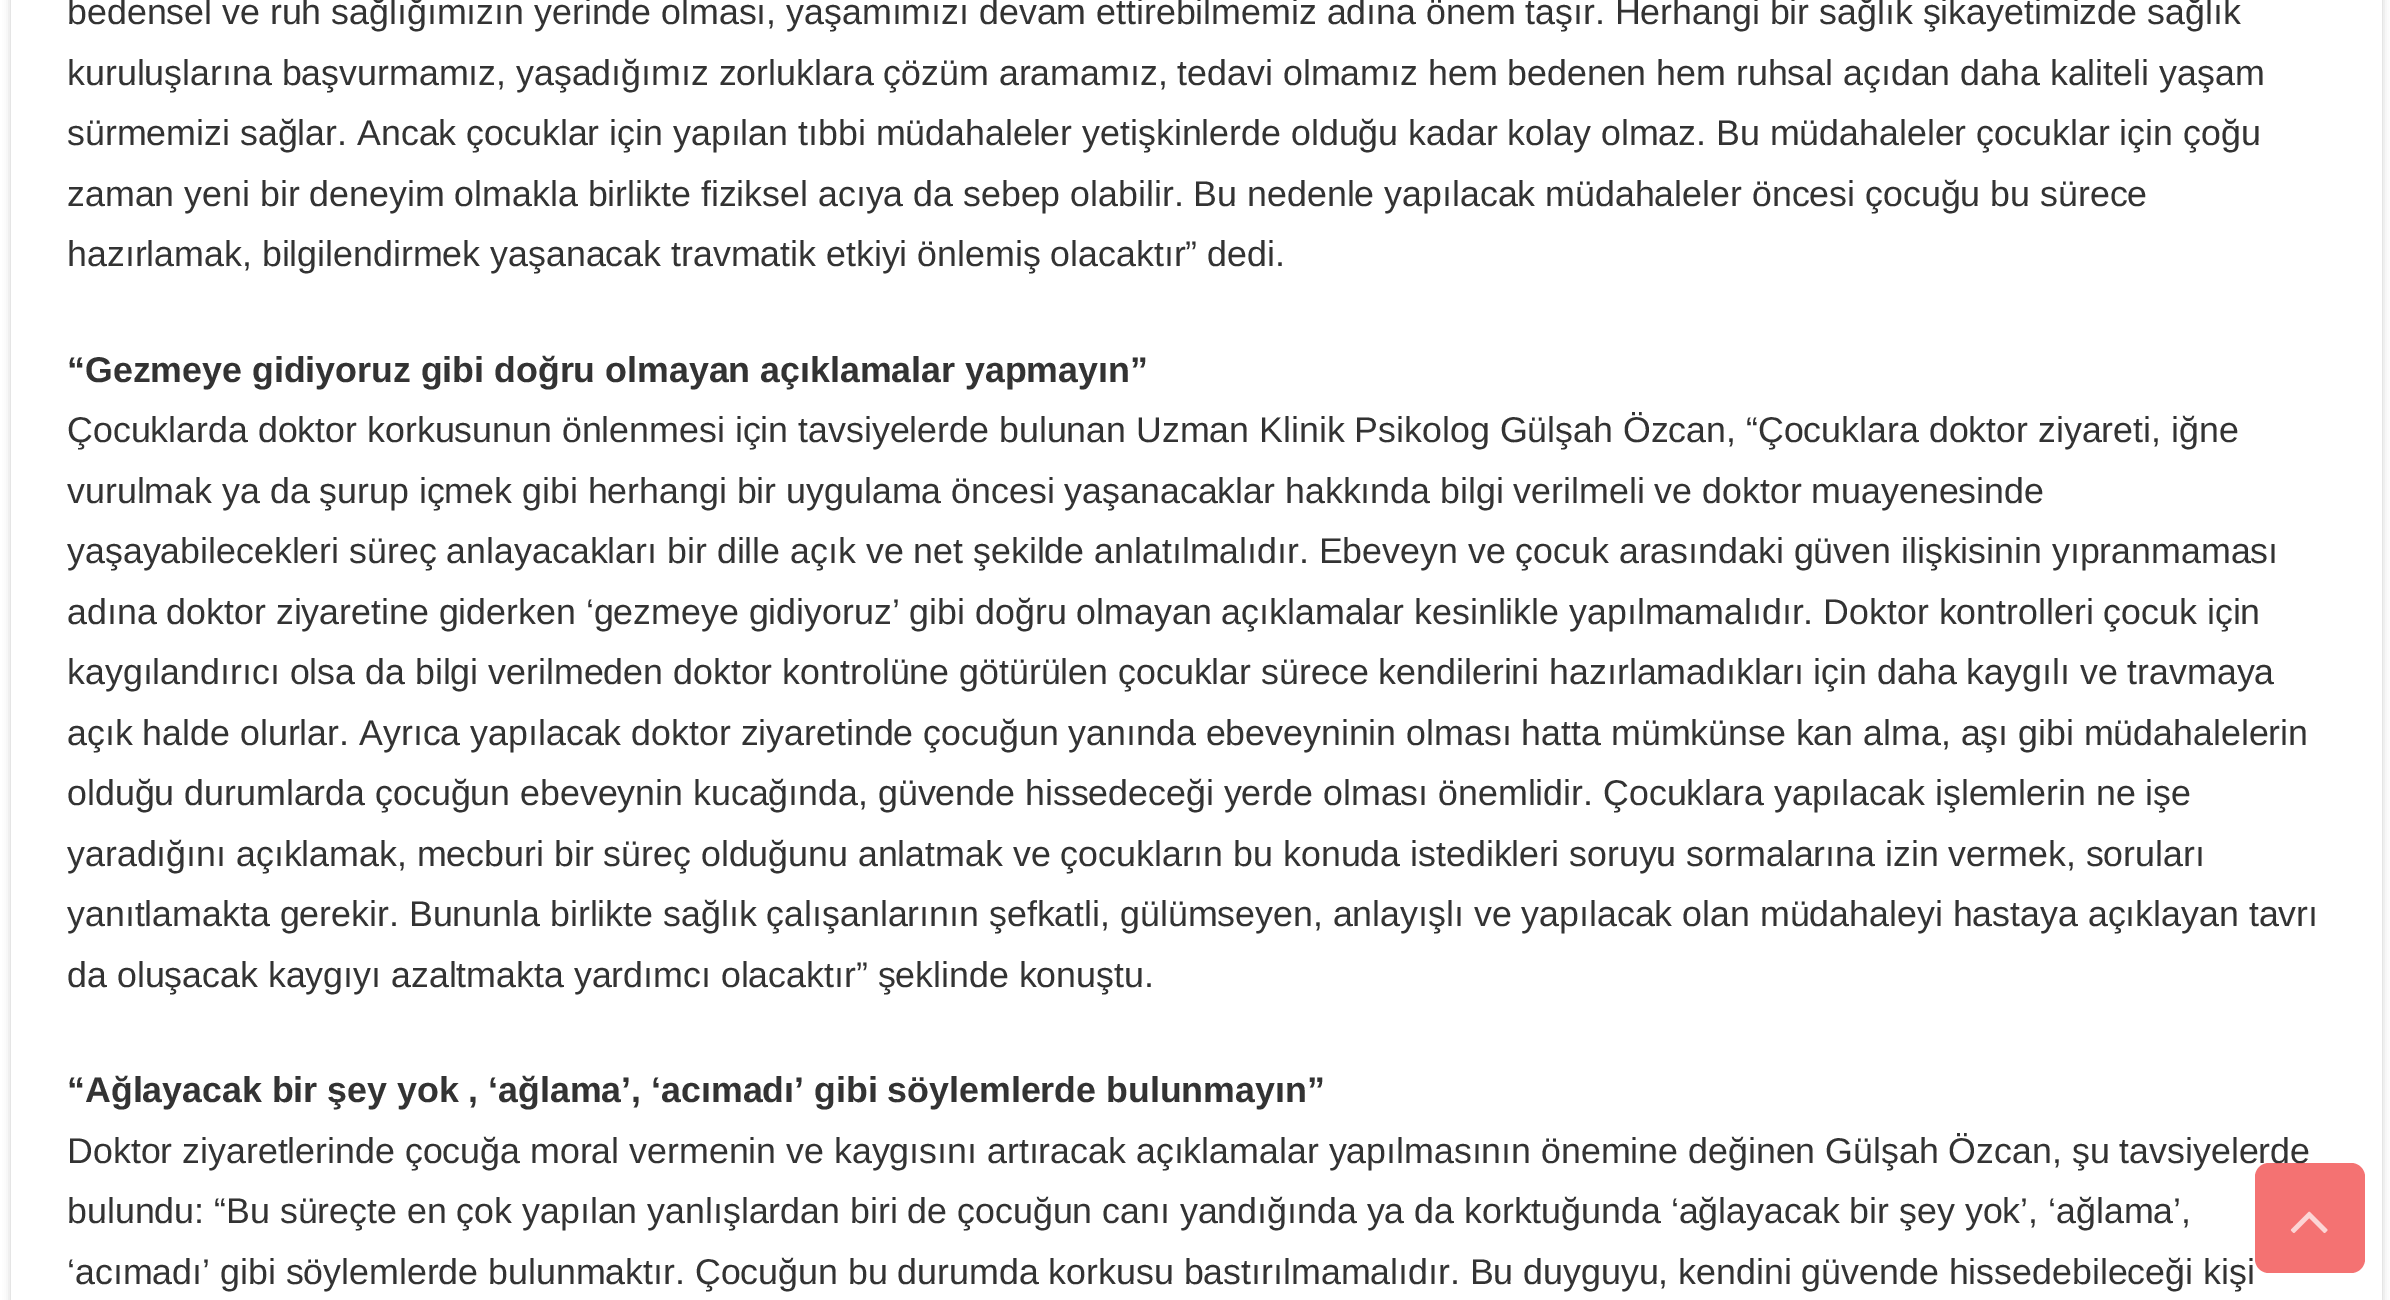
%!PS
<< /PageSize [2390 1300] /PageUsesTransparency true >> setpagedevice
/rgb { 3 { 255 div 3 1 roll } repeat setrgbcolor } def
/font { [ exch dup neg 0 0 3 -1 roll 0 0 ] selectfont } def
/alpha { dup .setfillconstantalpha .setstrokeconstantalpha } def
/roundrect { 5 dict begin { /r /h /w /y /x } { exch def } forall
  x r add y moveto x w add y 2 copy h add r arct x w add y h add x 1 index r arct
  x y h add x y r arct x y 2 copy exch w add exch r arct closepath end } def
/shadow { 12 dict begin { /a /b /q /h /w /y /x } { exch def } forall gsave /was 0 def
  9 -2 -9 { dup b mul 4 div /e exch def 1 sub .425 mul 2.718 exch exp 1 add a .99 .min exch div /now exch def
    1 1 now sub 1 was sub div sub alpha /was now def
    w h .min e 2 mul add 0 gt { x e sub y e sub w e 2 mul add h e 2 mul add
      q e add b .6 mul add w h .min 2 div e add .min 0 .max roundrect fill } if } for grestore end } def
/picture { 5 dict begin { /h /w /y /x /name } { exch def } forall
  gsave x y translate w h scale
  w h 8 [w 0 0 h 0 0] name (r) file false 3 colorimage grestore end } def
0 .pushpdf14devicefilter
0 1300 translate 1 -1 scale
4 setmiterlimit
255 255 255 rgb
0 0 2390 1300 rectfill
202 202 202 rgb
11 -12 2371 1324 0 4 1 shadow
255 255 255 rgb
11 0 2371 1300 rectfill
/LiberationSans-Regular 35.75 font
51 51 51 rgb
[
  [(bedensel ve ruh sağlığımızın yerinde olması, yaşamımızı devam ettirebilmemiz adına önem taşır. Herhangi bir sağlık şikayetimizde sağlık) 67 24]
  [(kuruluşlarına başvurmamız, yaşadığımız zorluklara çözüm aramamız, tedavi olmamız hem bedenen hem ruhsal açıdan daha kaliteli yaşam) 67 85]
  [(sürmemizi sağlar. Ancak çocuklar için yapılan tıbbi müdahaleler yetişkinlerde olduğu kadar kolay olmaz. Bu müdahaleler çocuklar için çoğu) 67 145]
  [(zaman yeni bir deneyim olmakla birlikte fiziksel acıya da sebep olabilir. Bu nedenle yapılacak müdahaleler öncesi çocuğu bu sürece) 67 206]
  [(hazırlamak, bilgilendirmek yaşanacak travmatik etkiyi önlemiş olacaktır” dedi.) 67 266]
] { aload pop moveto show } forall
/LiberationSans-Bold 35.75 font
67 382 moveto (“Gezmeye gidiyoruz gibi doğru olmayan açıklamalar yapmayın”) show
/LiberationSans-Regular 35.75 font
[
  [(Çocuklarda doktor korkusunun önlenmesi için tavsiyelerde bulunan Uzman Klinik Psikolog Gülşah Özcan, “Çocuklara doktor ziyareti, iğne) 67 442]
  [(vurulmak ya da şurup içmek gibi herhangi bir uygulama öncesi yaşanacaklar hakkında bilgi verilmeli ve doktor muayenesinde) 67 503]
  [(yaşayabilecekleri süreç anlayacakları bir dille açık ve net şekilde anlatılmalıdır. Ebeveyn ve çocuk arasındaki güven ilişkisinin yıpranmaması) 67 563]
  [(adına doktor ziyaretine giderken ‘gezmeye gidiyoruz’ gibi doğru olmayan açıklamalar kesinlikle yapılmamalıdır. Doktor kontrolleri çocuk için) 67 624]
  [(kaygılandırıcı olsa da bilgi verilmeden doktor kontrolüne götürülen çocuklar sürece kendilerini hazırlamadıkları için daha kaygılı ve travmaya) 67 684]
  [(açık halde olurlar. Ayrıca yapılacak doktor ziyaretinde çocuğun yanında ebeveyninin olması hatta mümkünse kan alma, aşı gibi müdahalelerin) 67 745]
  [(olduğu durumlarda çocuğun ebeveynin kucağında, güvende hissedeceği yerde olması önemlidir. Çocuklara yapılacak işlemlerin ne işe) 67 805]
  [(yaradığını açıklamak, mecburi bir süreç olduğunu anlatmak ve çocukların bu konuda istedikleri soruyu sormalarına izin vermek, soruları) 67 866]
  [(yanıtlamakta gerekir. Bununla birlikte sağlık çalışanlarının şefkatli, gülümseyen, anlayışlı ve yapılacak olan müdahaleyi hastaya açıklayan tavrı) 67 926]
  [(da oluşacak kaygıyı azaltmakta yardımcı olacaktır” şeklinde konuştu.) 67 987]
] { aload pop moveto show } forall
/LiberationSans-Bold 35.75 font
67 1102 moveto (“Ağlayacak bir şey yok , ‘ağlama’, ‘acımadı’ gibi söylemlerde bulunmayın”) show
/LiberationSans-Regular 35.75 font
[
  [(Doktor ziyaretlerinde çocuğa moral vermenin ve kaygısını artıracak açıklamalar yapılmasının önemine değinen Gülşah Özcan, şu tavsiyelerde) 67 1163]
  [(bulundu: “Bu süreçte en çok yapılan yanlışlardan biri de çocuğun canı yandığında ya da korktuğunda ‘ağlayacak bir şey yok’, ‘ağlama’,) 67 1223]
  [(‘acımadı’ gibi söylemlerde bulunmaktır. Çocuğun bu durumda korkusu bastırılmamalıdır. Bu duyguyu, kendini güvende hissedebileceği kişi) 67 1284]
] { aload pop moveto show } forall
0.7 alpha
239 54 54 rgb
2255 1163 110 110 14 roundrect fill
1 alpha
(img/1.rgb) 2290 1211 38 22 picture
.poppdf14devicefilter showpage
